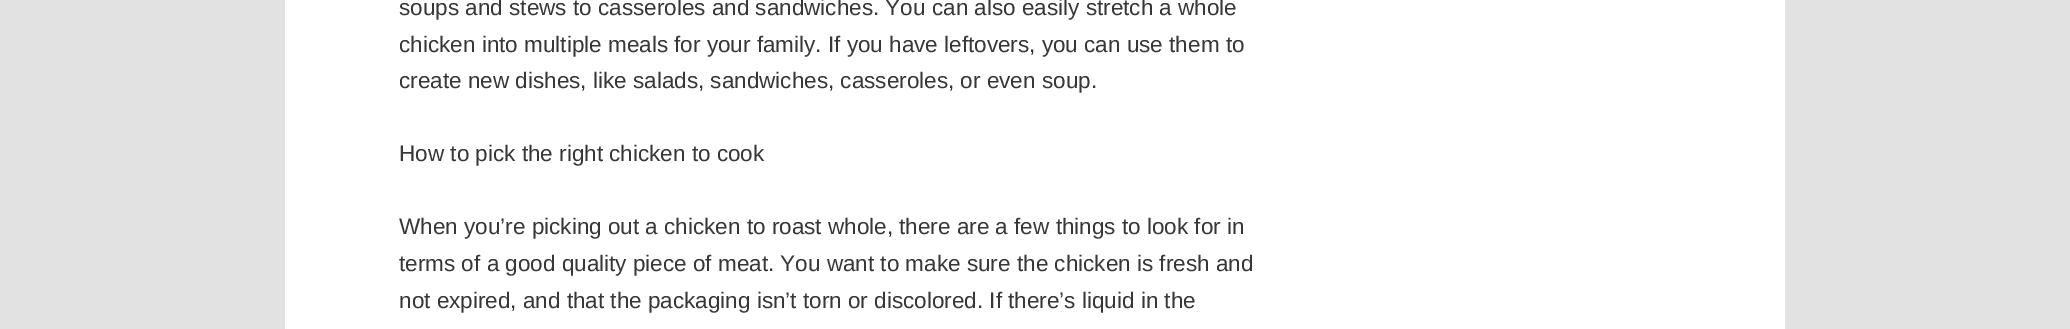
%!PS
<< /PageSize [2070 329] >> setpagedevice
/rgb { 3 { 255 div 3 1 roll } repeat setrgbcolor } def
/font { [ exch dup neg 0 0 3 -1 roll 0 0 ] selectfont } def
0 329 translate 1 -1 scale
4 setmiterlimit
226 226 226 rgb
0 0 2070 329 rectfill
255 255 255 rgb
285 0 1500 329 rectfill
/LiberationSans-Regular 22.5 font
55 55 55 rgb
[
  [(soups and stews to casseroles and sandwiches. You can also easily stretch a whole) 399 15]
  [(chicken into multiple meals for your family. If you have leftovers, you can use them to) 399 52]
  [(create new dishes, like salads, sandwiches, casseroles, or even soup.) 399 88]
  [(How to pick the right chicken to cook) 399 161]
  [(When you’re picking out a chicken to roast whole, there are a few things to look for in) 399 234]
  [(terms of a good quality piece of meat. You want to make sure the chicken is fresh and) 399 271]
  [(not expired, and that the packaging isn’t torn or discolored. If there’s liquid in the) 399 308]
] { aload pop moveto show } forall
showpage
